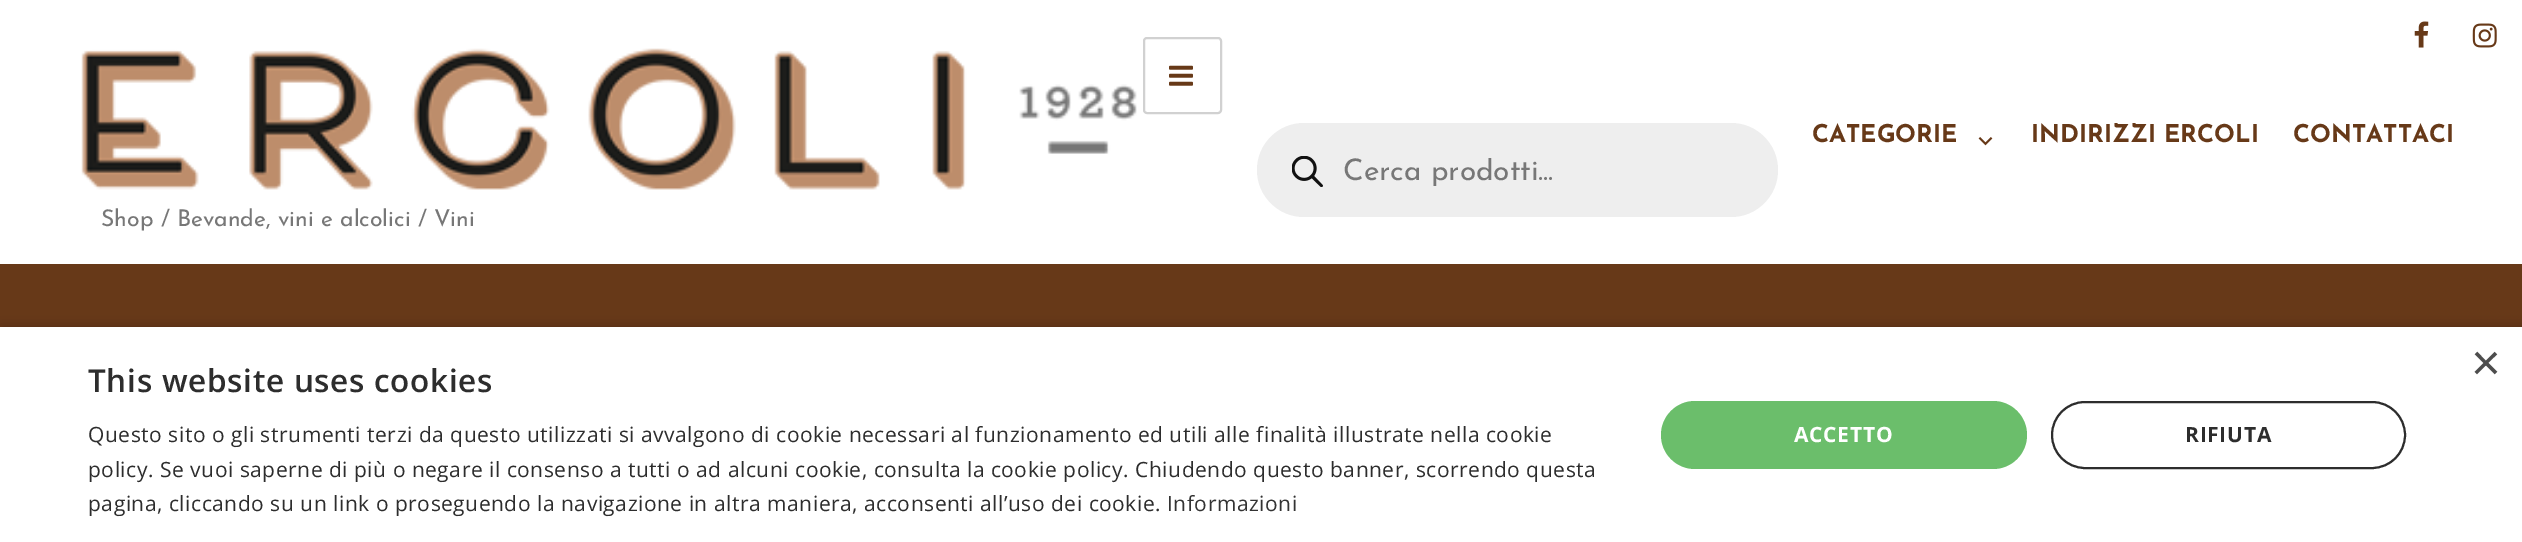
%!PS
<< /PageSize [2522 542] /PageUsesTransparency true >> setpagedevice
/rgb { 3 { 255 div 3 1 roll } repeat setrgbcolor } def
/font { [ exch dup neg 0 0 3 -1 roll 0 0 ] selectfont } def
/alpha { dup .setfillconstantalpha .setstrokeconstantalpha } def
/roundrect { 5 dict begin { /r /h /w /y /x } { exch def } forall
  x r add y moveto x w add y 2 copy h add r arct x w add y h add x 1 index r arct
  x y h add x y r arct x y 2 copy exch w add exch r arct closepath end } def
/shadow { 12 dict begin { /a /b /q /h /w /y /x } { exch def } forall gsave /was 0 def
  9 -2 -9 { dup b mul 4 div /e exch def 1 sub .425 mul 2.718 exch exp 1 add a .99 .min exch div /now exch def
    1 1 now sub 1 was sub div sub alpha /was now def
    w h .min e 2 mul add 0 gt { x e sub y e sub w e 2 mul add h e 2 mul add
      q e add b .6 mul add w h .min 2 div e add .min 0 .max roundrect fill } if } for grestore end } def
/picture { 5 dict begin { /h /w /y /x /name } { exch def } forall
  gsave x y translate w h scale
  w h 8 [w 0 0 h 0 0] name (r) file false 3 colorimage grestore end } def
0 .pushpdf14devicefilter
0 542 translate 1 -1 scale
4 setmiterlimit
255 255 255 rgb
0 0 2522 542 rectfill
(img/1.rgb) 81 48 1056 142 picture
209 209 209 rgb
2 setlinewidth
1144 38 77 75 3 roundrect stroke
(img/2.rgb) 1169 65 24 21 picture
(img/3.rgb) 1978 137 15 9 picture
238 238 238 rgb
1257 123 521 94 47 roundrect fill
(img/4.rgb) 1292 156 31 31 picture
(img/5.rgb) 2414 21 15 27 picture
(img/6.rgb) 2472 23 25 25 picture
103 57 24 rgb
0 264 2522 63 rectfill
0 0 0 rgb
2 331 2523 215 0 7 0.35 shadow
255 255 255 rgb
0 327 2522 215 rectfill
107 190 107 rgb
1661 401 366 68 34 roundrect fill
45 45 45 rgb
2052 402 353 66 33 roundrect stroke
/JosefinSans-Bold 24.5 font
103 57 24 rgb
[
  [(CATEGORIE) 1812 142]
  [(INDIRIZZI ERCOLI) 2031 142]
  [(CONTATTACI) 2293 142]
] { aload pop moveto show } forall
gsave
1344 158 389 29 rectclip
/JosefinSans-Regular 29.75 font
119 119 119 rgb
1343 180 moveto (Cerca prodotti...) show
grestore
/JosefinSans-Regular 23 font
119 119 119 rgb
101 226 moveto (Shop / Bevande, vini e alcolici / Vini) show
/LiberationSans-Regular 51 font
77 77 77 rgb
2471 380 moveto (×) show
/OpenSans-SemiBold 31.5 font
45 45 45 rgb
88 392 moveto 0.7 0 (This website uses cookies) ashow
/OpenSans-Regular 21 font
88 442 moveto 0.53 0 (Questo sito o gli strumenti terzi da questo utilizzati si avvalgono di cookie necessari al funzionamento ed utili alle finalità illustrate nella cookie) ashow
88 477 moveto 0.53 0 (policy. Se vuoi saperne di più o negare il consenso a tutti o ad alcuni cookie, consulta la cookie policy. Chiudendo questo banner, scorrendo questa) ashow
88 511 moveto 0.53 0 (pagina, cliccando su un link o proseguendo la navigazione in altra maniera, acconsenti all’uso dei cookie.) ashow
51 51 51 rgb
1167 511 moveto 0.53 0 (Informazioni) ashow
/OpenSans-Bold 21 font
255 255 255 rgb
1794 442 moveto 0.7 0 (ACCETTO) ashow
45 45 45 rgb
2185 442 moveto 0.7 0 (RIFIUTA) ashow
.poppdf14devicefilter showpage
